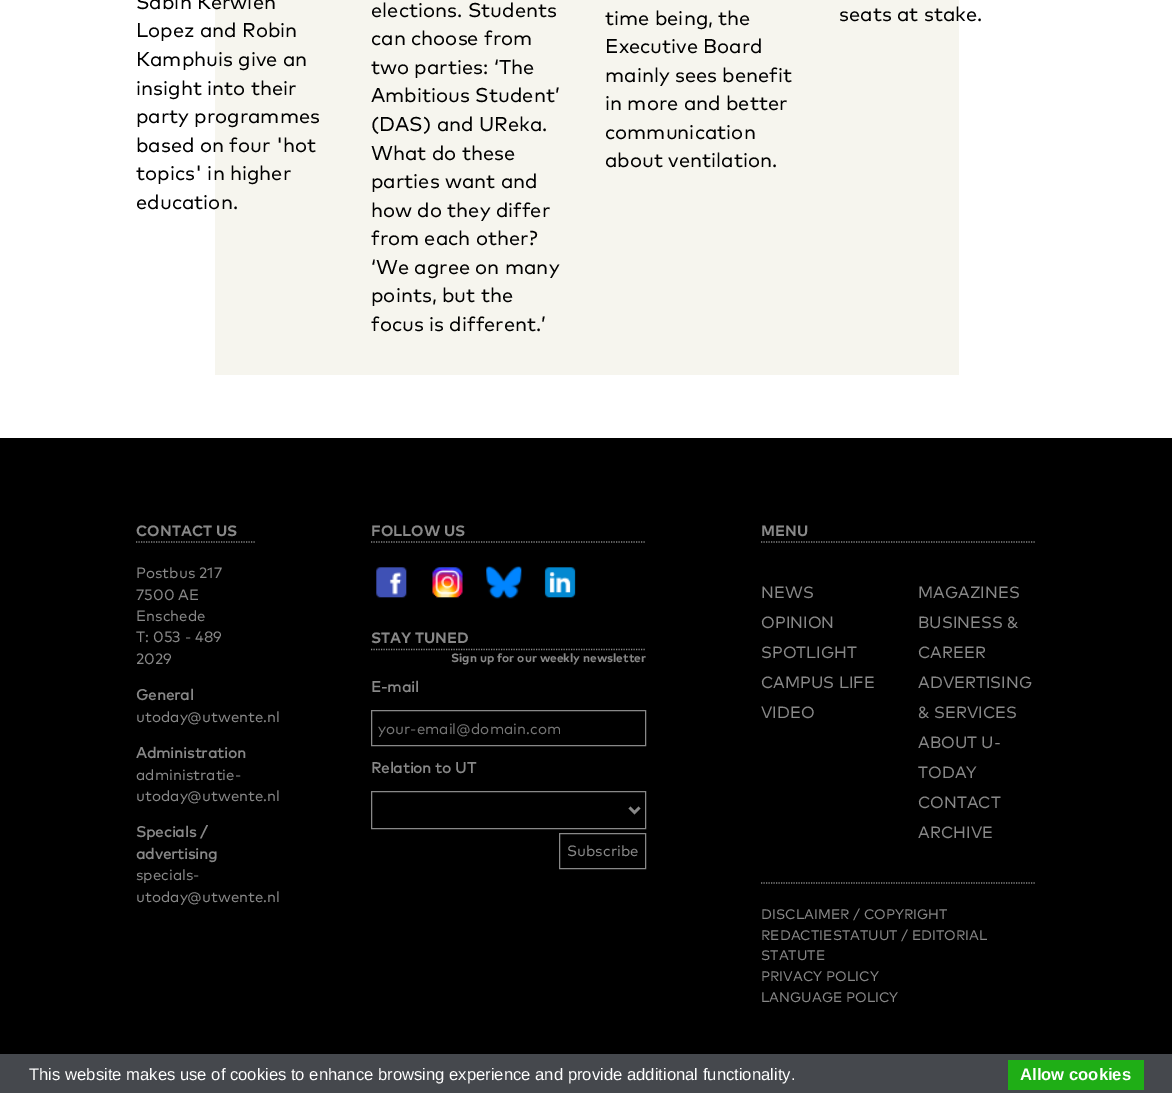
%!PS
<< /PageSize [1172 1093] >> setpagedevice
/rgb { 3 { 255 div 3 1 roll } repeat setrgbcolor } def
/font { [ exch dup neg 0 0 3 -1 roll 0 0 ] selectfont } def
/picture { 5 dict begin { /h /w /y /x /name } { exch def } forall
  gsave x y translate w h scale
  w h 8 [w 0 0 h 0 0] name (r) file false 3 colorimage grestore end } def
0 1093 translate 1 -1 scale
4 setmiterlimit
255 255 255 rgb
0 0 1172 1093 rectfill
246 245 238 rgb
215 0 744 375 rectfill
0 0 0 rgb
0 438 1172 616 rectfill
136 136 136 rgb
1.2 setlinewidth
[1.25 1.25] 0 setdash
136 542 moveto 255 542 lineto stroke
371 542 moveto 646 542 lineto stroke
(img/1.rgb) 376 567 31 31 picture
(img/2.rgb) 432 567 31 31 picture
(img/3.rgb) 486 566 36 33 picture
(img/4.rgb) 544 567 32 31 picture
371 649.5 moveto 646 649.5 lineto stroke
1 setlinewidth
[] 0 setdash
371.5 710.5 274 35 rectstroke
371.5 791.5 274 37 rectstroke
2.5 setlinewidth
629.5 807.5 moveto 634.5 812.5 lineto 639.5 807.5 lineto stroke
1 setlinewidth
559.5 833.5 86 35 rectstroke
1.2 setlinewidth
[1.25 1.25] 0 setdash
761 542 moveto 1036 542 lineto stroke
761 883 moveto 1036 883 lineto stroke
69 72 77 rgb
0 1054 1172 39 rectfill
31 174 22 rgb
1008 1060 136 30 rectfill
/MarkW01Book-Regular 20 font
0 0 0 rgb
[
  [(Sabin Kerwien) 136 9]
  [(Lopez and Robin) 136 37]
  [(Kamphuis give an) 136 66]
  [(insight into their) 136 95]
  [(party programmes) 136 123]
  [(based on four 'hot) 136 152]
  [(topics' in higher) 136 180]
  [(education.) 136 209]
  [(elections. Students) 371 17]
  [(can choose from) 371 45]
  [(two parties: ‘The) 371 74]
  [(Ambitious Student’) 371 102]
  [(\(DAS\) and UReka.) 371 131]
  [(What do these) 371 160]
  [(parties want and) 371 188]
  [(how do they differ) 371 217]
  [(from each other?) 371 245]
  [(‘We agree on many) 371 274]
  [(points, but the) 371 302]
  [(focus is different.’) 371 331]
  [(time being, the) 605 25]
  [(Executive Board) 605 53]
  [(mainly sees benefit) 605 82]
  [(in more and better) 605 110]
  [(communication) 605 139]
  [(about ventilation.) 605 167]
  [(seats at stake.) 839 21]
] { aload pop moveto show } forall
/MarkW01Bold-Bold 15 font
136 136 136 rgb
136 536 moveto (CONTACT US) show
/MarkW01Book-Regular 15 font
[
  [(Postbus 217) 136 578]
  [(7500 AE) 136 600]
  [(Enschede) 136 621]
  [(T: 053 - 489) 136 642]
  [(2029) 136 664]
] { aload pop moveto show } forall
/MarkW01Book-Bold 15 font
136 700 moveto (General) show
/MarkW01Book-Regular 15 font
136 722 moveto (utoday@utwente.nl) show
/MarkW01Book-Bold 15 font
136 758 moveto (Administration) show
/MarkW01Book-Regular 15 font
136 780 moveto (administratie-) show
136 801 moveto (utoday@utwente.nl) show
/MarkW01Book-Bold 15 font
136 837 moveto (Specials /) show
136 859 moveto (advertising) show
/MarkW01Book-Regular 15 font
136 880 moveto (specials-) show
136 902 moveto (utoday@utwente.nl) show
/MarkW01Bold-Bold 15 font
371 536 moveto (FOLLOW US) show
371 643 moveto (STAY TUNED) show
/MarkW01Bold-Bold 12 font
451 662 moveto (Sign up for our weekly newsletter) show
/MarkW01Book-Bold 15 font
371 692 moveto (E-mail) show
/MarkW01Book-Regular 15 font
117 117 117 rgb
378 734 moveto (your-email@domain.com) show
/MarkW01Book-Bold 15 font
136 136 136 rgb
371 773 moveto (Relation to UT) show
/MarkW01Book-Regular 15 font
567 856 moveto (Subscribe) show
/MarkW01Bold-Bold 15 font
761 536 moveto (MENU) show
/MarkW01Book-Regular 16.25 font
[
  [(NEWS) 761 598]
  [(OPINION) 761 628]
  [(SPOTLIGHT) 761 658]
  [(CAMPUS LIFE) 761 688]
  [(VIDEO) 761 718]
  [(MAGAZINES) 918 598]
  [(BUSINESS &) 918 628]
  [(CAREER) 918 658]
  [(ADVERTISING) 918 688]
  [(& SERVICES) 918 718]
  [(ABOUT U-) 918 748]
  [(TODAY) 918 778]
  [(CONTACT) 918 808]
  [(ARCHIVE) 918 838]
] { aload pop moveto show } forall
/MarkW01Book-Regular 13.75 font
[
  [(DISCLAIMER / COPYRIGHT) 761 919]
  [(REDACTIESTATUUT / EDITORIAL) 761 940]
  [(STATUTE) 761 960]
  [(PRIVACY POLICY) 761 981]
  [(LANGUAGE POLICY) 761 1002]
] { aload pop moveto show } forall
/LiberationSans-Regular 16.65 font
255 255 255 rgb
29 1080 moveto (This website makes use of cookies to enhance browsing experience and provide additional functionality.) show
/LiberationSans-Bold 16.65 font
1020 1080 moveto (Allow cookies) show
showpage
